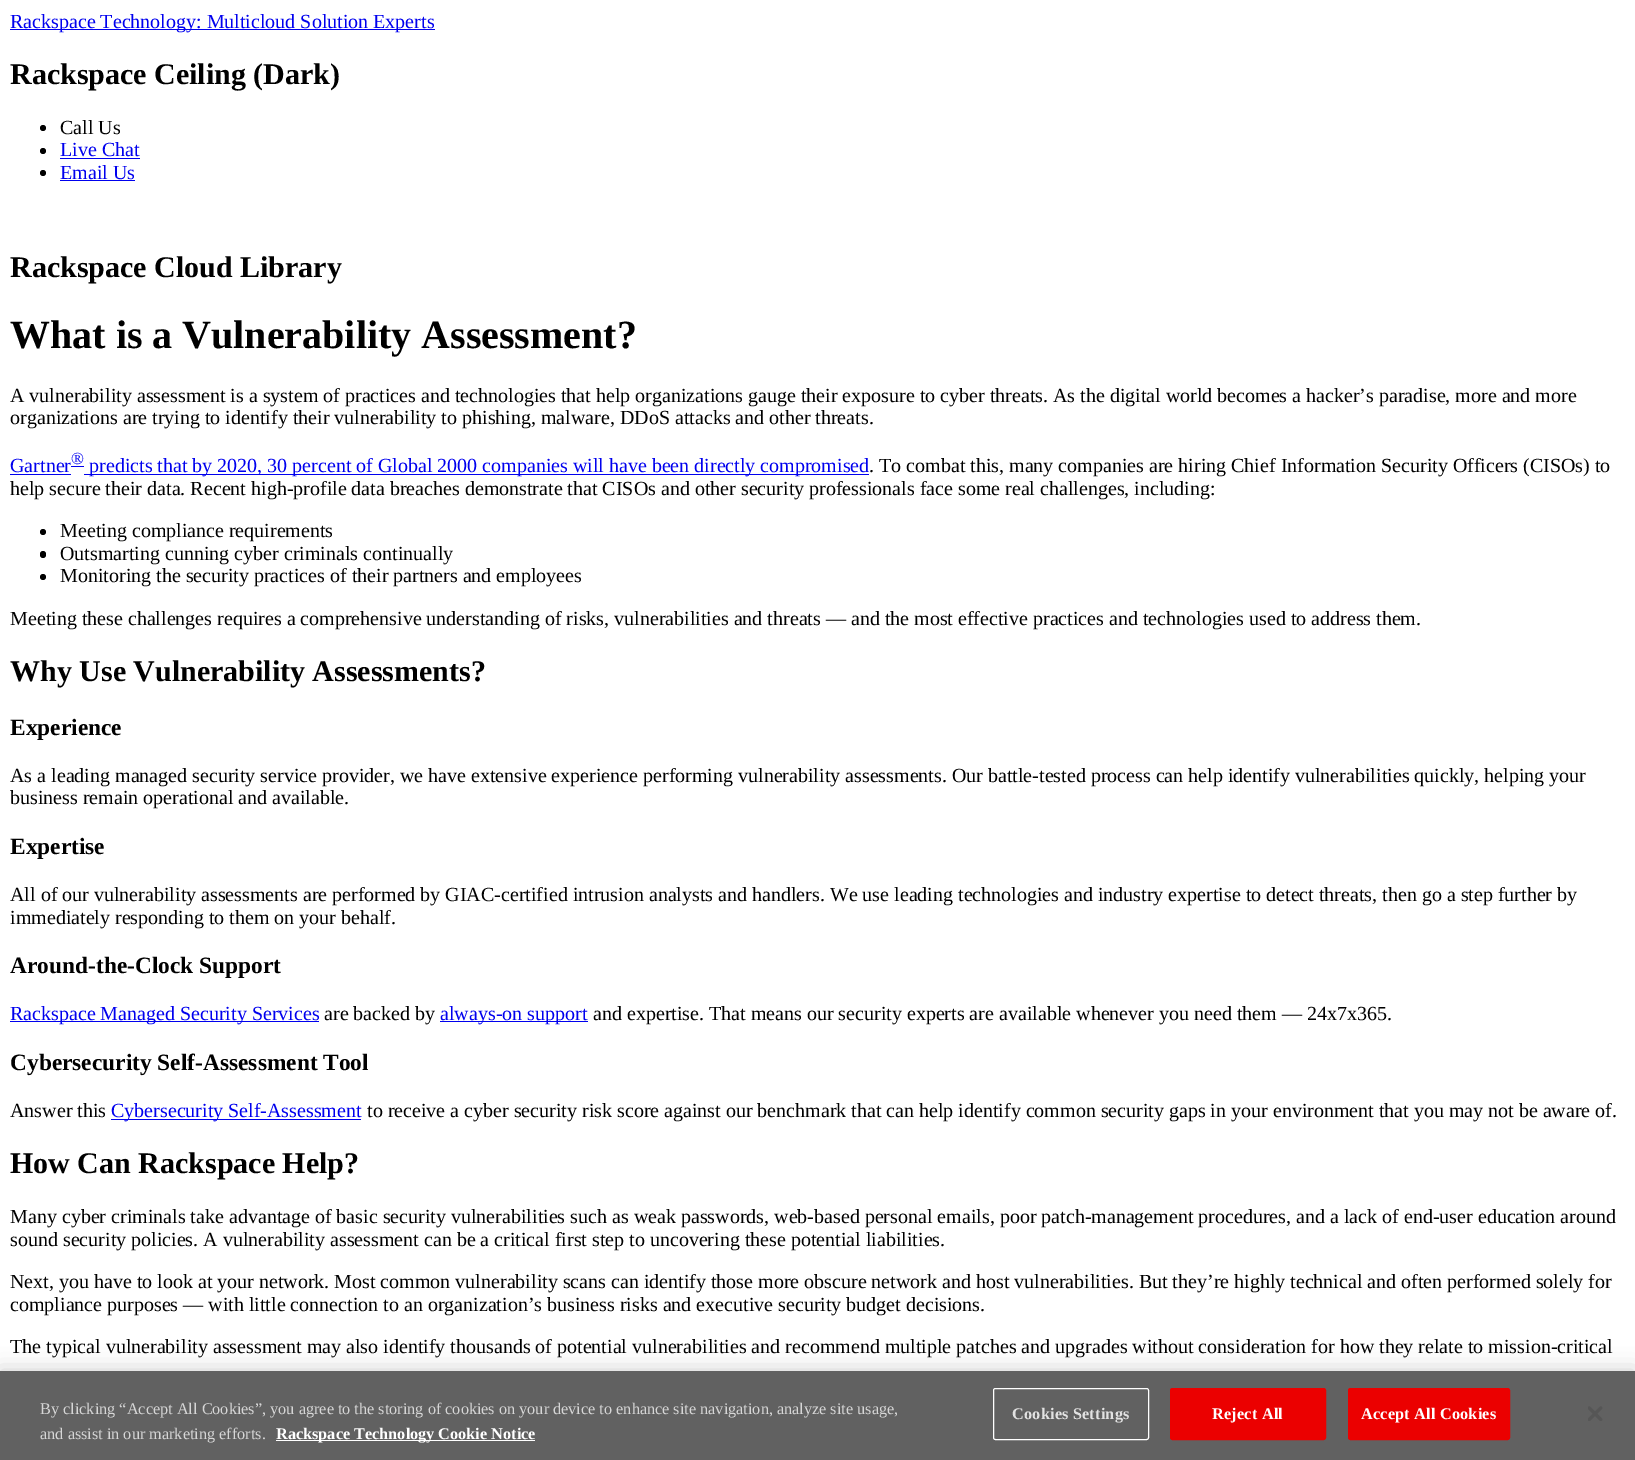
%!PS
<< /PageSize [1635 1460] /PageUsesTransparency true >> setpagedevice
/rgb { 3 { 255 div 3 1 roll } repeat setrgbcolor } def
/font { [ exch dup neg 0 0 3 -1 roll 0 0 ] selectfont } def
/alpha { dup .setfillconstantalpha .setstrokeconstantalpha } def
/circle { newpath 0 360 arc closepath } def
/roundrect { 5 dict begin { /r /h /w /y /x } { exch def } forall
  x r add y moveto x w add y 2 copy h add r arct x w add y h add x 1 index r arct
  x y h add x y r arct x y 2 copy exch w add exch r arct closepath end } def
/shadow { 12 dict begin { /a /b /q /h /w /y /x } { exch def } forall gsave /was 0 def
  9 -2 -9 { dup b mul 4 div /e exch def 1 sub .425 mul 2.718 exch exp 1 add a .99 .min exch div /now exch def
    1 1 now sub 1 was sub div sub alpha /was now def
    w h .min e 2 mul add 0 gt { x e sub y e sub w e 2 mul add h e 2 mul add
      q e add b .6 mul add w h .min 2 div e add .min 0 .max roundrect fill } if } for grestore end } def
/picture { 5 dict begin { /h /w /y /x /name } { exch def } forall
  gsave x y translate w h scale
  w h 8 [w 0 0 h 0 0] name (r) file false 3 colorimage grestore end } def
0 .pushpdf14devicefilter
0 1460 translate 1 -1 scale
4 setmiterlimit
255 255 255 rgb
0 0 1635 1460 rectfill
0 0 238 rgb
10 29 425 1 rectfill
0 0 0 rgb
43 128 3 circle fill
43 151 3 circle fill
0 0 238 rgb
60 158 80 1 rectfill
0 0 0 rgb
43 173 3 circle fill
[
  [60 180 75 1 0 0 238]
  [10 474 61 1 0 0 238]
  [71 466 13 1 0 0 238]
  [84 474 785 1 0 0 238]
] { aload pop rgb rectfill } forall
0 0 0 rgb
43 532 3 circle fill
40 551 6 7 3 roundrect fill
43 577 3 circle fill
[
  [10 1021 309 1 0 0 238]
  [440 1021 148 1 0 0 238]
  [111 1119 250 1 0 0 238]
] { aload pop rgb rectfill } forall
0 0 0 rgb
0 1371 1635 89 0 11 0.2 shadow
97 97 97 rgb
0 1371 1635 89 rectfill
255 255 255 rgb
276 1440 259 1 rectfill
993.5 1388.5 155 51 2 roundrect stroke
235 0 0 rgb
1170.5 1388.5 155 51 2 roundrect gsave fill grestore
stroke
1348.5 1388.5 161 51 2 roundrect gsave fill grestore
stroke
(img/1.rgb) 1588 1406 15 15 picture
/LiberationSerif-Regular 20 font
0 0 238 rgb
10 28 moveto (Rackspace Technology: Multicloud Solution Experts) show
/LiberationSerif-Bold 30 font
0 0 0 rgb
10 84 moveto (Rackspace Ceiling \(Dark\)) show
/LiberationSerif-Regular 20 font
60 134 moveto (Call Us) show
0 0 238 rgb
60 156 moveto (Live Chat) show
60 179 moveto (Email Us) show
/LiberationSerif-Bold 30 font
0 0 0 rgb
10 277 moveto (Rackspace Cloud Library) show
/LiberationSerif-Bold 40 font
10 348 moveto (What is a Vulnerability Assessment?) show
/LiberationSerif-Regular 20 font
10 402 moveto (A vulnerability assessment is a system of practices and technologies that help organizations gauge their exposure to cyber threats. As the digital world becomes a hacker’s paradise, more and more) show
10 424 moveto (organizations are trying to identify their vulnerability to phishing, malware, DDoS attacks and other threats.) show
0 0 238 rgb
10 472 moveto (Gartner) show
/LiberationSerif-Regular 17 font
71 464 moveto (®) show
/LiberationSerif-Regular 20 font
89 472 moveto (predicts that by 2020, 30 percent of Global 2000 companies will have been directly compromised) show
0 0 0 rgb
[
  [(. To combat this, many companies are hiring Chief Information Security Officers \(CISOs\) to) 869 472]
  [(help secure their data. Recent high-profile data breaches demonstrate that CISOs and other security professionals face some real challenges, including:) 10 495]
  [(Meeting compliance requirements) 60 537]
  [(Outsmarting cunning cyber criminals continually) 60 560]
  [(Monitoring the security practices of their partners and employees) 60 582]
  [(Meeting these challenges requires a comprehensive understanding of risks, vulnerabilities and threats — and the most effective practices and technologies used to address them.) 10 625]
] { aload pop moveto show } forall
/LiberationSerif-Bold 30 font
10 681 moveto (Why Use Vulnerability Assessments?) show
/LiberationSerif-Bold 23.4 font
10 735 moveto (Experience) show
/LiberationSerif-Regular 20 font
10 782 moveto (As a leading managed security service provider, we have extensive experience performing vulnerability assessments. Our battle-tested process can help identify vulnerabilities quickly, helping your) show
10 804 moveto (business remain operational and available.) show
/LiberationSerif-Bold 23.4 font
10 854 moveto (Expertise) show
/LiberationSerif-Regular 20 font
10 901 moveto (All of our vulnerability assessments are performed by GIAC-certified intrusion analysts and handlers. We use leading technologies and industry expertise to detect threats, then go a step further by) show
10 924 moveto (immediately responding to them on your behalf.) show
/LiberationSerif-Bold 23.4 font
10 973 moveto (Around-the-Clock Support) show
/LiberationSerif-Regular 20 font
0 0 238 rgb
10 1020 moveto (Rackspace Managed Security Services) show
0 0 0 rgb
324 1020 moveto (are backed by) show
0 0 238 rgb
440 1020 moveto (always-on support) show
0 0 0 rgb
593 1020 moveto (and expertise. That means our security experts are available whenever you need them — 24x7x365.) show
/LiberationSerif-Bold 23.4 font
10 1070 moveto (Cybersecurity Self-Assessment Tool) show
/LiberationSerif-Regular 20 font
10 1117 moveto (Answer this) show
0 0 238 rgb
111 1117 moveto (Cybersecurity Self-Assessment) show
0 0 0 rgb
367 1117 moveto (to receive a cyber security risk score against our benchmark that can help identify common security gaps in your environment that you may not be aware of.) show
/LiberationSerif-Bold 30 font
10 1173 moveto (How Can Rackspace Help?) show
/LiberationSerif-Regular 20 font
[
  [(Many cyber criminals take advantage of basic security vulnerabilities such as weak passwords, web-based personal emails, poor patch-management procedures, and a lack of end-user education around) 10 1223]
  [(sound security policies. A vulnerability assessment can be a critical first step to uncovering these potential liabilities.) 10 1246]
  [(Next, you have to look at your network. Most common vulnerability scans can identify those more obscure network and host vulnerabilities. But they’re highly technical and often performed solely for) 10 1288]
  [(compliance purposes — with little connection to an organization’s business risks and executive security budget decisions.) 10 1311]
  [(The typical vulnerability assessment may also identify thousands of potential vulnerabilities and recommend multiple patches and upgrades without consideration for how they relate to mission-critical) 10 1353]
] { aload pop moveto show } forall
/LiberationSerif-Regular 16.25 font
214 214 214 rgb
40 1414 moveto (By clicking “Accept All Cookies”, you agree to the storing of cookies on your device to enhance site navigation, analyze site usage,) show
40 1439 moveto (and assist in our marketing efforts.) show
/LiberationSerif-Bold 16.25 font
255 255 255 rgb
276 1439 moveto (Rackspace Technology Cookie Notice) show
226 226 226 rgb
1012 1419 moveto 0.2 0 (Cookies Settings) ashow
255 255 255 rgb
1212 1419 moveto 0.2 0 (Reject All) ashow
1361 1419 moveto 0.2 0 (Accept All Cookies) ashow
.poppdf14devicefilter showpage
